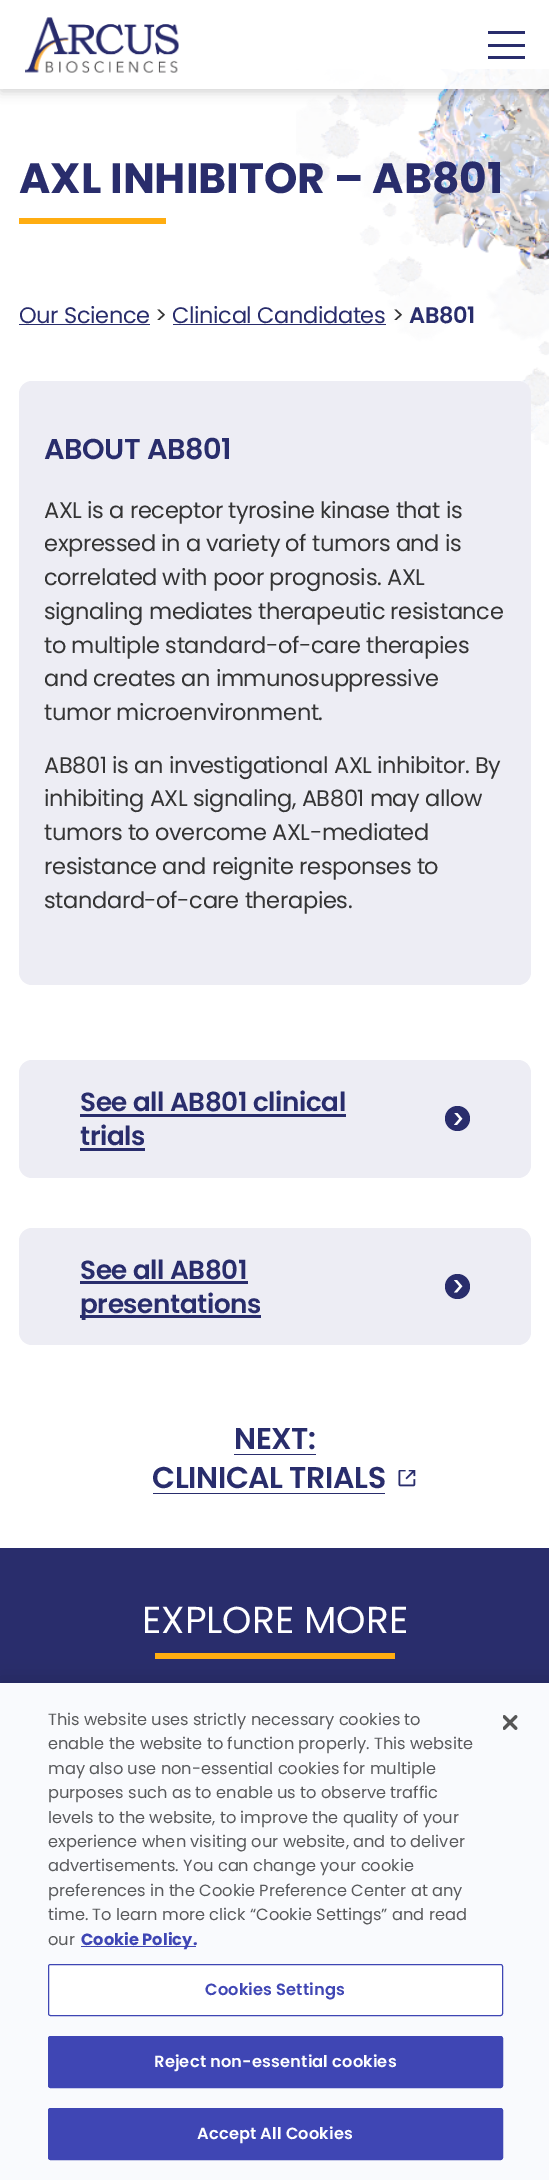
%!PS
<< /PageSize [549 2180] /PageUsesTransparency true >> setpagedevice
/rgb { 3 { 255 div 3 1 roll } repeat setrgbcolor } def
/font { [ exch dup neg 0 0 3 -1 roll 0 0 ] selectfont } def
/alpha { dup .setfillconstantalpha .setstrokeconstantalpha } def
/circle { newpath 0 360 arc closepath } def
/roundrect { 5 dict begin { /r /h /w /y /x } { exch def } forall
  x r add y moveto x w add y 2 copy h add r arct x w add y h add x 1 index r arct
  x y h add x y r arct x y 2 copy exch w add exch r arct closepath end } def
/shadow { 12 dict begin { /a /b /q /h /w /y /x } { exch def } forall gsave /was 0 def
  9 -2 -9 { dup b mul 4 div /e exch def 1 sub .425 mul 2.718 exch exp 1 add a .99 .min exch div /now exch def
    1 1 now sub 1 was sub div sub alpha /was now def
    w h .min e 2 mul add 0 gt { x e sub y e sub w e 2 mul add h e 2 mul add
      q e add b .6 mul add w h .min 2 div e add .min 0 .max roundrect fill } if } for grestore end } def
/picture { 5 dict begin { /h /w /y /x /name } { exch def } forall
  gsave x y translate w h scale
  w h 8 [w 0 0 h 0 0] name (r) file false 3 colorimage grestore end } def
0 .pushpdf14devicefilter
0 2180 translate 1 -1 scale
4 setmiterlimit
255 255 255 rgb
0 0 549 2180 rectfill
(img/2.rgb) 296 69 253 376 picture
gsave
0 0 moveto 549 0 lineto 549 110 lineto 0 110 lineto closepath 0 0 moveto 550 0 lineto 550 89 lineto 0 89 lineto closepath eoclip newpath
0 0 0 rgb
1 5 548 86 0 6 0.2 shadow
grestore
0.9 alpha
0 69 549 20 rectfill
1 alpha
(img/1.rgb) 25 17 154 56 picture
[
  [488 31 37 3 41 45 108]
  [488 44 37 3 41 45 108]
  [488 56 37 3 41 45 108]
  [19 218 147 6 255 173 17]
  [19 324 131 1 41 45 108]
  [173 324 213 1 41 45 108]
] { aload pop rgb rectfill } forall
237 237 244 rgb
19 381 512 604 13 roundrect fill
19 1060 512 118 13 roundrect fill
41 45 108 rgb
80 1114 266 3 rectfill
80 1148 65 3 rectfill
457.5 1118.5 12.5 circle fill
(img/3.rgb) 454 1113 9 12 picture
237 237 244 rgb
19 1228 512 117 13 roundrect fill
41 45 108 rgb
80 1281 168 3 rectfill
80 1315 181 3 rectfill
457.5 1286.5 12.5 circle fill
(img/4.rgb) 454 1280 9 13 picture
234 1454 82 1 rectfill
153 1493 232 1 rectfill
(img/5.rgb) 398 1470 18 17 picture
0 1548 549 135 rectfill
255 173 17 rgb
155 1653 240 6 rectfill
0 0 0 rgb
0 1683 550 497 0 11 0.2 shadow
249 250 253 rgb
0 1683 549 497 rectfill
63 70 180 rgb
81 1946 115 1 rectfill
255 255 255 rgb
48.5 1964.5 454 51 2 roundrect gsave fill grestore
63 70 180 rgb
stroke
48.5 2036.5 454 51 2 roundrect gsave fill grestore
stroke
48.5 2108.5 454 51 2 roundrect gsave fill grestore
stroke
(img/6.rgb) 503 1715 15 15 picture
/Poppins-Bold 42.5 font
41 45 108 rgb
19 193 moveto (AXL INHIBITOR – AB801) show
/Poppins-Regular 22.5 font
19 323 moveto -0.4 0 (Our Science) ashow
52 52 52 rgb
155 323 moveto -0.4 0 (>) ashow
41 45 108 rgb
172 323 moveto -0.4 0 (Clinical Candidates) ashow
52 52 52 rgb
392 323 moveto -0.4 0 (>) ashow
/Poppins-SemiBold 22.5 font
41 45 108 rgb
409 323 moveto -0.4 0 (AB801) ashow
/Poppins-SemiBold 28.75 font
44 459 moveto -0.4 0 (ABOUT AB801) ashow
/Poppins-Regular 22.5 font
52 52 52 rgb
44 518 moveto -0.4 0 (AXL is a receptor tyrosine kinase that is) ashow
44 551 moveto -0.4 0 (expressed in a variety of tumors and is) ashow
44 585 moveto -0.4 0 (correlated with poor prognosis. AXL) ashow
44 619 moveto -0.4 0 (signaling mediates therapeutic resistance) ashow
44 653 moveto -0.4 0 (to multiple standard-of-care therapies) ashow
44 686 moveto -0.4 0 (and creates an immunosuppressive) ashow
44 720 moveto -0.4 0 (tumor microenvironment.) ashow
44 773 moveto -0.4 0 (AB801 is an investigational AXL inhibitor. By) ashow
44 806 moveto -0.4 0 (inhibiting AXL signaling, AB801 may allow) ashow
44 840 moveto -0.4 0 (tumors to overcome AXL-mediated) ashow
44 874 moveto -0.4 0 (resistance and reignite responses to) ashow
44 908 moveto -0.4 0 (standard-of-care therapies.) ashow
/Poppins-SemiBold 26.25 font
41 45 108 rgb
80 1111 moveto -0.4 0 (See all AB801 clinical) ashow
80 1145 moveto -0.4 0 (trials) ashow
80 1279 moveto -0.4 0 (See all AB801) ashow
80 1313 moveto -0.4 0 (presentations) ashow
/Poppins-SemiBold 30 font
234 1449 moveto -0.4 0 (NEXT:) ashow
152 1488 moveto -0.4 0 (CLINICAL TRIALS) ashow
/Poppins-Regular 37.5 font
255 255 255 rgb
142 1633 moveto (EXPLORE MORE) show
/Poppins-Regular 16.25 font
88 89 91 rgb
[
  [(This website uses strictly necessary cookies to) 48 1725]
  [(enable the website to function properly. This website) 48 1749]
  [(may also use non-essential cookies for multiple) 48 1774]
  [(purposes such as to enable us to observe traffic) 48 1798]
  [(levels to the website, to improve the quality of your) 48 1823]
  [(experience when visiting our website, and to deliver) 48 1847]
  [(advertisements. You can change your cookie) 48 1871]
  [(preferences in the Cookie Preference Center at any) 48 1896]
  [(time. To learn more click “Cookie Settings” and read) 48 1920]
  [(our) 48 1945]
] { aload pop moveto show } forall
/Poppins-Bold 16.25 font
63 70 180 rgb
81 1945 moveto (Cookie Policy.) show
/Poppins-SemiBold 16.25 font
205 1995 moveto 0.15 0 (Cookies Settings) ashow
255 255 255 rgb
154 2067 moveto 0.15 0 (Reject non-essential cookies) ashow
197 2139 moveto 0.15 0 (Accept All Cookies) ashow
.poppdf14devicefilter showpage
